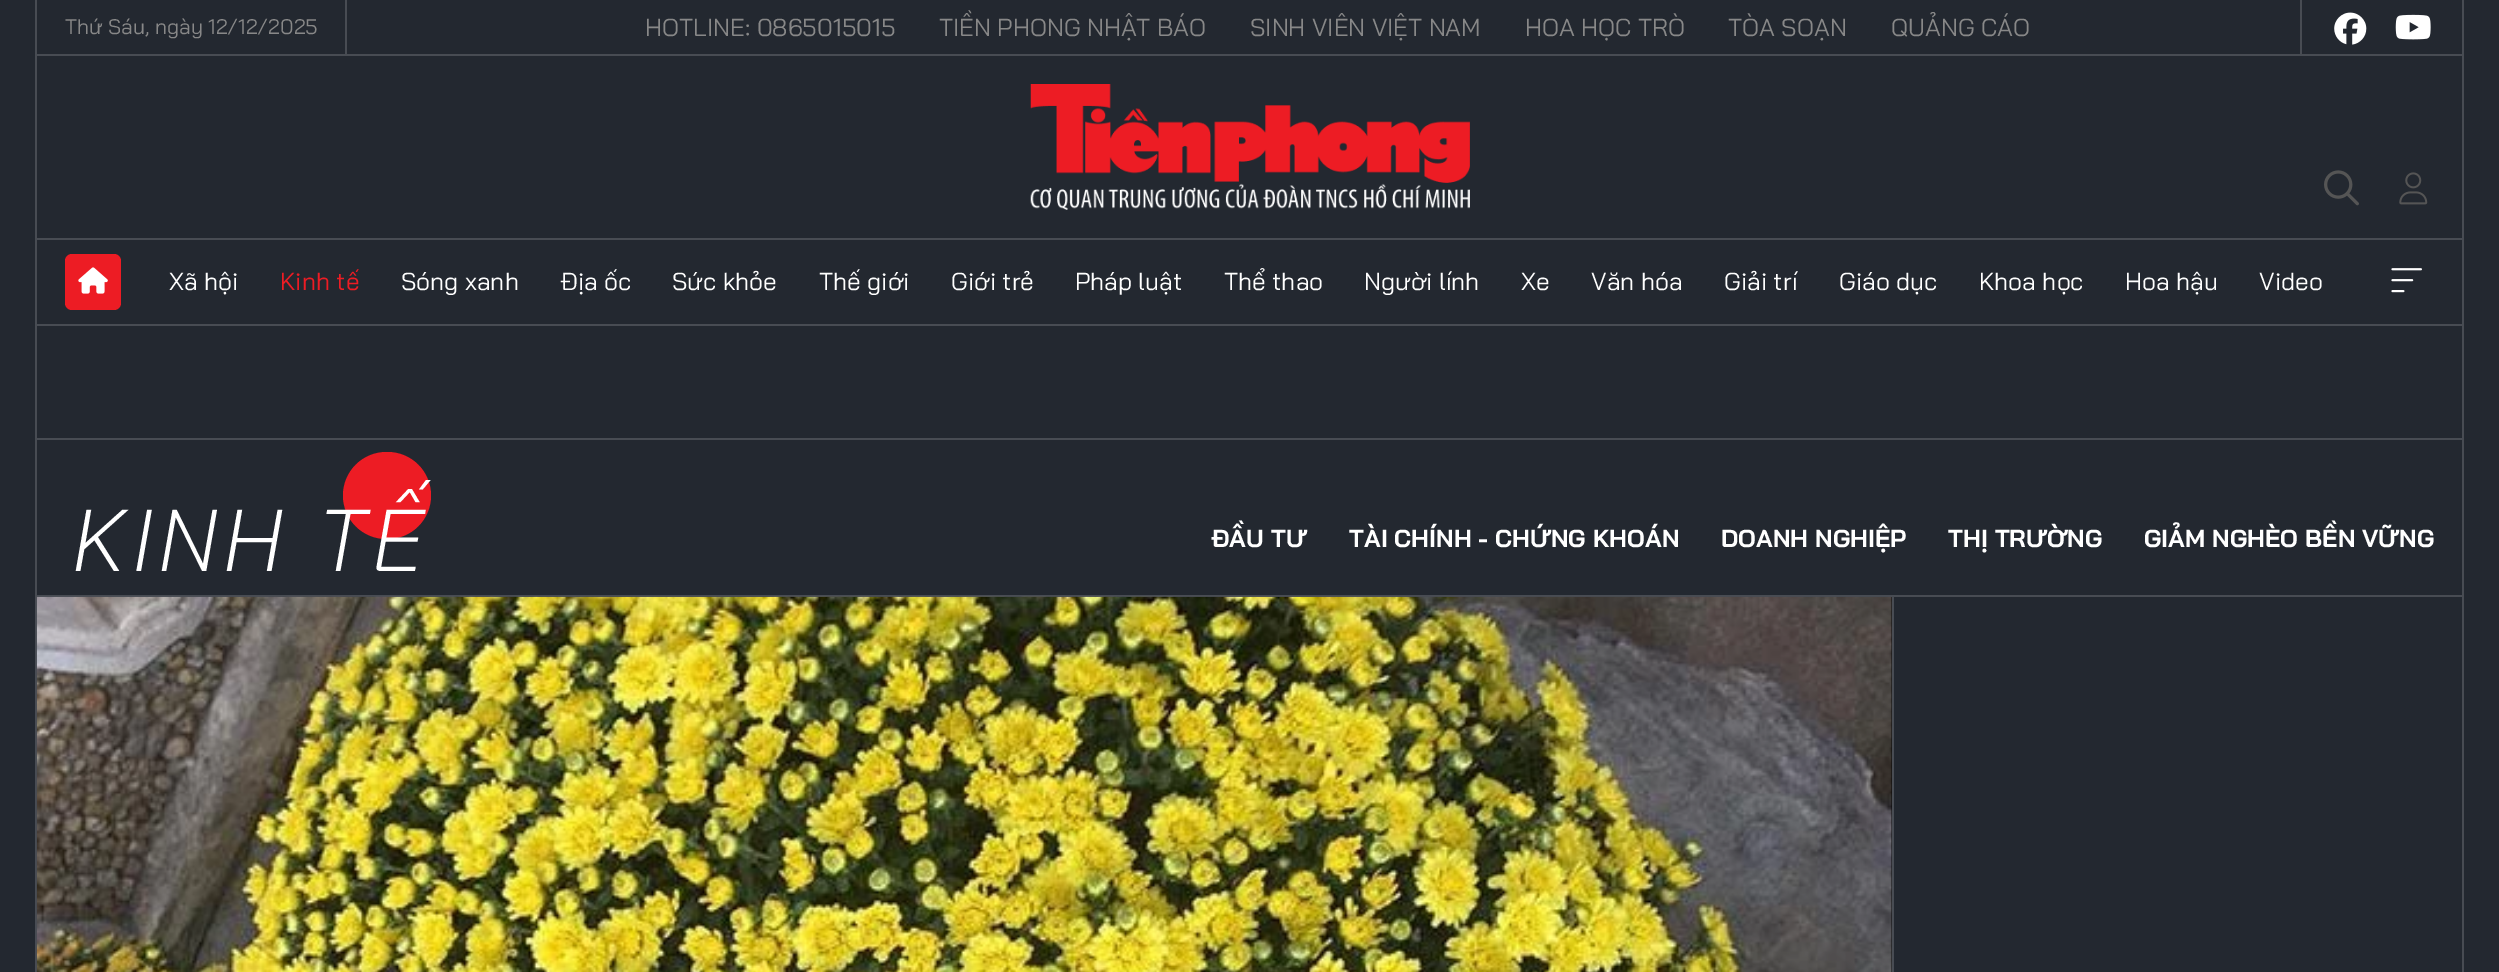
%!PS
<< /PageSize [2499 972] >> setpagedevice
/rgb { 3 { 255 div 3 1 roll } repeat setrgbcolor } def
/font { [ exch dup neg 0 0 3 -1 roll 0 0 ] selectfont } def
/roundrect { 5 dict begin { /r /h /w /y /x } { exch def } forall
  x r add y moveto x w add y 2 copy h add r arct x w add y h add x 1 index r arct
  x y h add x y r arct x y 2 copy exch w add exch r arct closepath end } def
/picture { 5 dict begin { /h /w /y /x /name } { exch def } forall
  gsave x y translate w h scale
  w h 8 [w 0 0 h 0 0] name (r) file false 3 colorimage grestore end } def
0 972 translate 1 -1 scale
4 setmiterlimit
35 40 48 rgb
0 0 2499 972 rectfill
[
  [2462 0 2 324 72 76 83]
  [35 54 2429 2 72 76 83]
  [35 0 2 56 72 76 83]
  [345 0 2 56 72 76 83]
  [2300 0 2 56 72 76 83]
] { aload pop rgb rectfill } forall
(img/1.rgb) 2334 12 33 33 picture
(img/2.rgb) 2395 14 36 26 picture
35 238 2429 2 rectfill
35 56 2 268 rectfill
(img/3.rgb) 1030 84 440 126 picture
(img/4.rgb) 2324 170 35 36 picture
(img/5.rgb) 2399 172 29 33 picture
237 28 36 rgb
65 254 56 56 7 roundrect fill
(img/6.rgb) 78 267 30 27 picture
(img/7.rgb) 2391 268 31 25 picture
[
  [35 324 2429 2 72 76 83]
  [2462 324 2 648 72 76 83]
  [35 324 2 648 72 76 83]
  [37 438 2425 2 72 76 83]
  [37 595 2425 2 72 76 83]
] { aload pop rgb rectfill } forall
237 28 36 rgb
343 452 88 87 43.5 roundrect fill
0 0 0 rgb
1891 597 1 375 rectfill
(img/9.rgb) 269 596 1390 1 picture
(img/8.rgb) 36 596 1856 376 picture
72 76 83 rgb
1892 597 2 375 rectfill
/BaiJamjuree-Regular 21 font
136 136 136 rgb
65 34 moveto (Thứ Sáu, ngày 12/12/2025) show
/BaiJamjuree-Regular 24.5 font
[
  [(HOTLINE: 0865015015) 645 36]
  [(TIỀN PHONG NHẬT BÁO) 939 36]
  [(SINH VIÊN VIỆT NAM) 1250 36]
  [(HOA HỌC TRÒ) 1525 36]
  [(TÒA SOẠN) 1728 36]
  [(QUẢNG CÁO) 1891 36]
] { aload pop moveto show } forall
255 255 255 rgb
169 290 moveto (Xã hội) show
237 28 36 rgb
280 290 moveto (Kinh tế) show
255 255 255 rgb
[
  [(Sóng xanh) 401 290]
  [(Địa ốc) 560 290]
  [(Sức khỏe) 672 290]
  [(Thế giới) 819 290]
  [(Giới trẻ) 951 290]
  [(Pháp luật) 1075 290]
  [(Thể thao) 1224 290]
  [(Người lính) 1364 290]
  [(Xe) 1521 290]
  [(Văn hóa) 1591 290]
  [(Giải trí) 1724 290]
  [(Giáo dục) 1839 290]
  [(Khoa học) 1979 290]
  [(Hoa hậu) 2125 290]
  [(Video) 2259 290]
] { aload pop moveto show } forall
/BaiJamjuree-LightItalic 87.5 font
72 571 moveto 5.5 0 (KINH TẾ) ashow
/BaiJamjuree-Bold 24.5 font
[
  [(ĐẦU TƯ) 1211 547]
  [(TÀI CHÍNH - CHỨNG KHOÁN) 1349 547]
  [(DOANH NGHIỆP) 1721 547]
  [(THỊ TRƯỜNG) 1948 547]
  [(GIẢM NGHÈO BỀN VỮNG) 2144 547]
] { aload pop moveto show } forall
showpage
